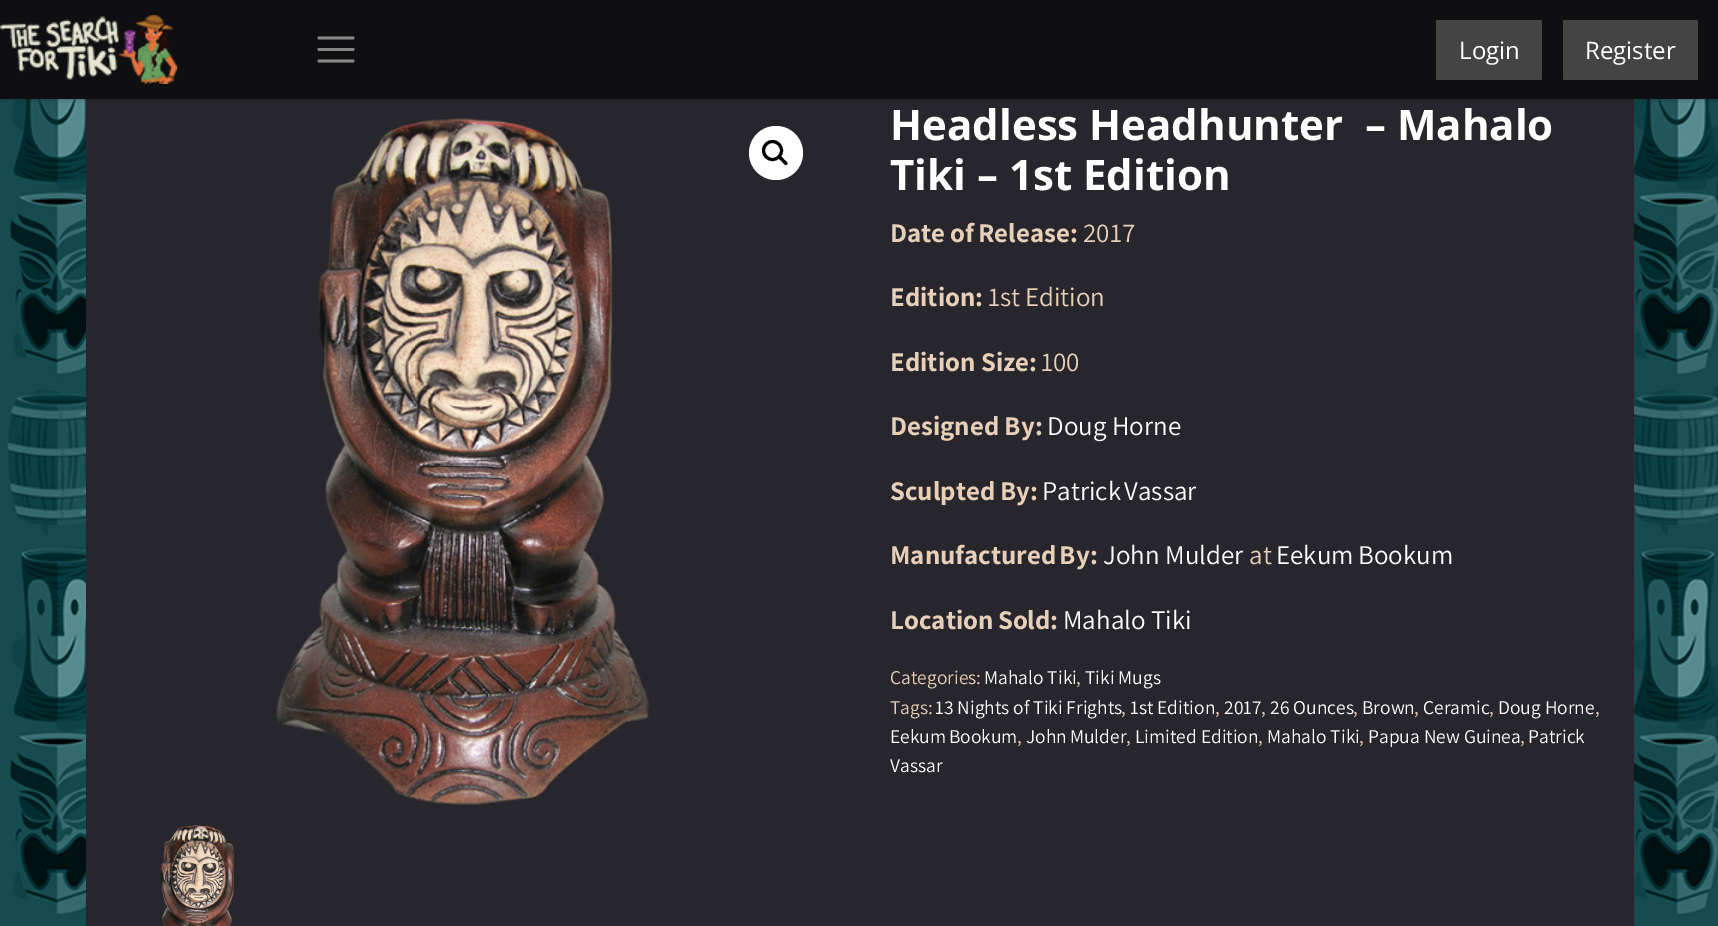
%!PS
<< /PageSize [1718 926] /PageUsesTransparency true >> setpagedevice
/rgb { 3 { 255 div 3 1 roll } repeat setrgbcolor } def
/font { [ exch dup neg 0 0 3 -1 roll 0 0 ] selectfont } def
/alpha { dup .setfillconstantalpha .setstrokeconstantalpha } def
/circle { newpath 0 360 arc closepath } def
/roundrect { 5 dict begin { /r /h /w /y /x } { exch def } forall
  x r add y moveto x w add y 2 copy h add r arct x w add y h add x 1 index r arct
  x y h add x y r arct x y 2 copy exch w add exch r arct closepath end } def
/shadow { 12 dict begin { /a /b /q /h /w /y /x } { exch def } forall gsave /was 0 def
  9 -2 -9 { dup b mul 4 div /e exch def 1 sub .425 mul 2.718 exch exp 1 add a .99 .min exch div /now exch def
    1 1 now sub 1 was sub div sub alpha /was now def
    w h .min e 2 mul add 0 gt { x e sub y e sub w e 2 mul add h e 2 mul add
      q e add b .6 mul add w h .min 2 div e add .min 0 .max roundrect fill } if } for grestore end } def
/picture { 5 dict begin { /h /w /y /x /name } { exch def } forall
  gsave x y translate w h scale
  w h 8 [w 0 0 h 0 0] name (r) file false 3 colorimage grestore end } def
0 .pushpdf14devicefilter
0 926 translate 1 -1 scale
4 setmiterlimit
255 255 255 rgb
0 0 1718 926 rectfill
(img/1.rgb) 0 99 1718 827 picture
39 38 44 rgb
86 99 1548 827 rectfill
6 8 8 rgb
-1 -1 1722 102 0 1.5 0.15 shadow
15 15 17 rgb
0 0 1718 99 rectfill
(img/2.rgb) 0 15 178 69 picture
135 135 136 rgb
2.8 setlinewidth
1 setlinecap
319 38 moveto 353 38 lineto 319 49.5 moveto 353 49.5 lineto 319 61 moveto 353 61 lineto stroke
68 68 68 rgb
1436 20 106 60 1.5 roundrect fill
1563 20 135 60 1.5 roundrect fill
(img/3.rgb) 276 118 374 687 picture
255 255 255 rgb
776 153 27 circle fill
0 0 0 rgb
3 setlinewidth
0 setlinecap
772.5 150.5 9 circle stroke
778.5 156.5 moveto 780.5 154.5 783 158.5 784 159.5 curveto 785 160.5 789 163 787 164.5 curveto 785.5 166.5 783 162.5 782 161.5 curveto 781 160.5 777 158 778.5 156.5 curveto closepath fill
(img/4.rgb) 160 825 74 101 picture
/OpenSans-Regular 24 font
255 255 255 rgb
1459 59 moveto (Login) show
1585 59 moveto (Register) show
/OpenSans-Bold 42 font
890 140 moveto (Headless Headhunter  – Mahalo) show
890 190 moveto (Tiki – 1st Edition) show
/Assistant-Bold 27 font
232 207 183 rgb
890 242 moveto -1 0 32 (Date of Release:) widthshow
/Assistant-Regular 27 font
1083 242 moveto (2017) show
/Assistant-Bold 27 font
890 306 moveto (Edition:) show
/Assistant-Regular 27 font
988 306 moveto -1 0 32 (1st Edition) widthshow
/Assistant-Bold 27 font
890 371 moveto (Edition Size:) show
/Assistant-Regular 27 font
1041 371 moveto (100) show
/Assistant-Bold 27 font
890 435 moveto (Designed By:) show
/Assistant-Regular 27 font
255 255 255 rgb
1047 435 moveto (Doug Horne) show
/Assistant-Bold 27 font
232 207 183 rgb
890 500 moveto -1 0 32 (Sculpted By:) widthshow
/Assistant-Regular 27 font
255 255 255 rgb
1042 500 moveto -2 0 32 (Patrick Vassar) widthshow
/Assistant-Bold 27 font
232 207 183 rgb
890 564 moveto -2 0 32 (Manufactured By:) widthshow
/Assistant-Regular 27 font
255 255 255 rgb
1103 564 moveto (John Mulder) show
232 207 183 rgb
1249 564 moveto (at) show
255 255 255 rgb
1276 564 moveto -1 0 32 (Eekum Bookum) widthshow
/Assistant-Bold 27 font
232 207 183 rgb
890 629 moveto -1 0 32 (Location Sold:) widthshow
/Assistant-Regular 27 font
255 255 255 rgb
1063 629 moveto (Mahalo Tiki) show
/Assistant-Regular 19.5 font
232 207 183 rgb
890 684 moveto (Categories:) show
255 255 255 rgb
984 684 moveto (Mahalo Tiki) show
232 207 183 rgb
1076 684 moveto (,) show
255 255 255 rgb
1085 684 moveto (Tiki Mugs) show
232 207 183 rgb
890 714 moveto (Tags:) show
255 255 255 rgb
935 714 moveto (13 Nights of Tiki Frights) show
232 207 183 rgb
1121 714 moveto (,) show
255 255 255 rgb
1130 714 moveto (1st Edition) show
232 207 183 rgb
1215 714 moveto (,) show
255 255 255 rgb
1224 714 moveto (2017) show
232 207 183 rgb
1261 714 moveto (,) show
255 255 255 rgb
1270 714 moveto (26 Ounces) show
232 207 183 rgb
1353 714 moveto (,) show
255 255 255 rgb
1362 714 moveto (Brown) show
232 207 183 rgb
1414 714 moveto (,) show
255 255 255 rgb
1423 714 moveto (Ceramic) show
232 207 183 rgb
1489 714 moveto (,) show
255 255 255 rgb
1498 714 moveto (Doug Horne) show
232 207 183 rgb
1595 714 moveto (,) show
255 255 255 rgb
890 743 moveto -1 0 32 (Eekum Bookum) widthshow
232 207 183 rgb
1017 743 moveto (,) show
255 255 255 rgb
1026 743 moveto -1 0 32 (John Mulder) widthshow
232 207 183 rgb
1126 743 moveto (,) show
255 255 255 rgb
1135 743 moveto (Limited Edition) show
232 207 183 rgb
1258 743 moveto (,) show
255 255 255 rgb
1267 743 moveto (Mahalo Tiki) show
232 207 183 rgb
1359 743 moveto (,) show
255 255 255 rgb
1368 743 moveto (Papua New Guinea) show
232 207 183 rgb
1520 743 moveto (,) show
255 255 255 rgb
1528 743 moveto (Patrick) show
890 772 moveto (Vassar) show
.poppdf14devicefilter showpage
